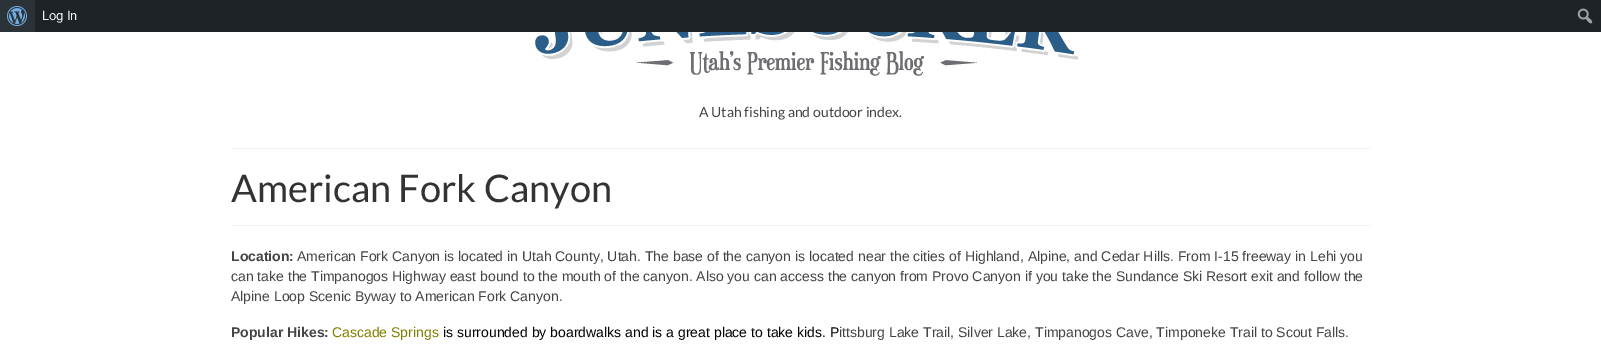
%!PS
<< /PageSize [1601 355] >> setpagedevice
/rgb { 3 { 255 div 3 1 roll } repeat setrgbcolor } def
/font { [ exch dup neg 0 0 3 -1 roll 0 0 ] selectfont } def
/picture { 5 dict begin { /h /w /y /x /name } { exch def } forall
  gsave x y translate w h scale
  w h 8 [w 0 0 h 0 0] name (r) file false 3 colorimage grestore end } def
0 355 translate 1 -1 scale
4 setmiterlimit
255 255 255 rgb
0 0 1601 355 rectfill
29 35 39 rgb
35 0 1566 32 rectfill
44 51 56 rgb
0 0 35 32 rectfill
(img/1.rgb) 7 6 20 20 picture
(img/2.rgb) 1577 8 16 16 picture
(img/3.rgb) 535 32 544 44 picture
242 242 242 rgb
231 148 1140 1 rectfill
231 225 1140 1 rectfill
/Roboto-Regular 13 font
240 240 241 rgb
42 20 moveto (Log In) show
/Lato-Regular 14 font
68 68 68 rgb
699 117 moveto (A Utah fishing and outdoor index.) show
/Lato-Regular 38 font
51 51 51 rgb
231 202 moveto (American Fork Canyon) show
/LiberationSans-Bold 14 font
68 68 68 rgb
231 261 moveto (Location:) show
/LiberationSans-Regular 14 font
[
  [(American Fork Canyon is located in Utah County, Utah. The base of the canyon is located near the cities of Highland, Alpine, and Cedar Hills. From I-15 freeway in Lehi you) 297 261]
  [(can take the Timpanogos Highway east bound to the mouth of the canyon. Also you can access the canyon from Provo Canyon if you take the Sundance Ski Resort exit and follow the) 231 281]
  [(Alpine Loop Scenic Byway to American Fork Canyon.) 231 301]
] { aload pop moveto show } forall
/LiberationSans-Bold 14 font
231 337 moveto (Popular Hikes:) show
/LiberationSans-Regular 14 font
128 128 0 rgb
332 337 moveto (Cascade Springs) show
0 0 0 rgb
443 337 moveto (is surrounded by boardwalks and is a great place to take kids. P) show
68 68 68 rgb
839 337 moveto (ittsburg Lake Trail, Silver Lake, Timpanogos Cave, Timponeke Trail to Scout Falls.) show
showpage
